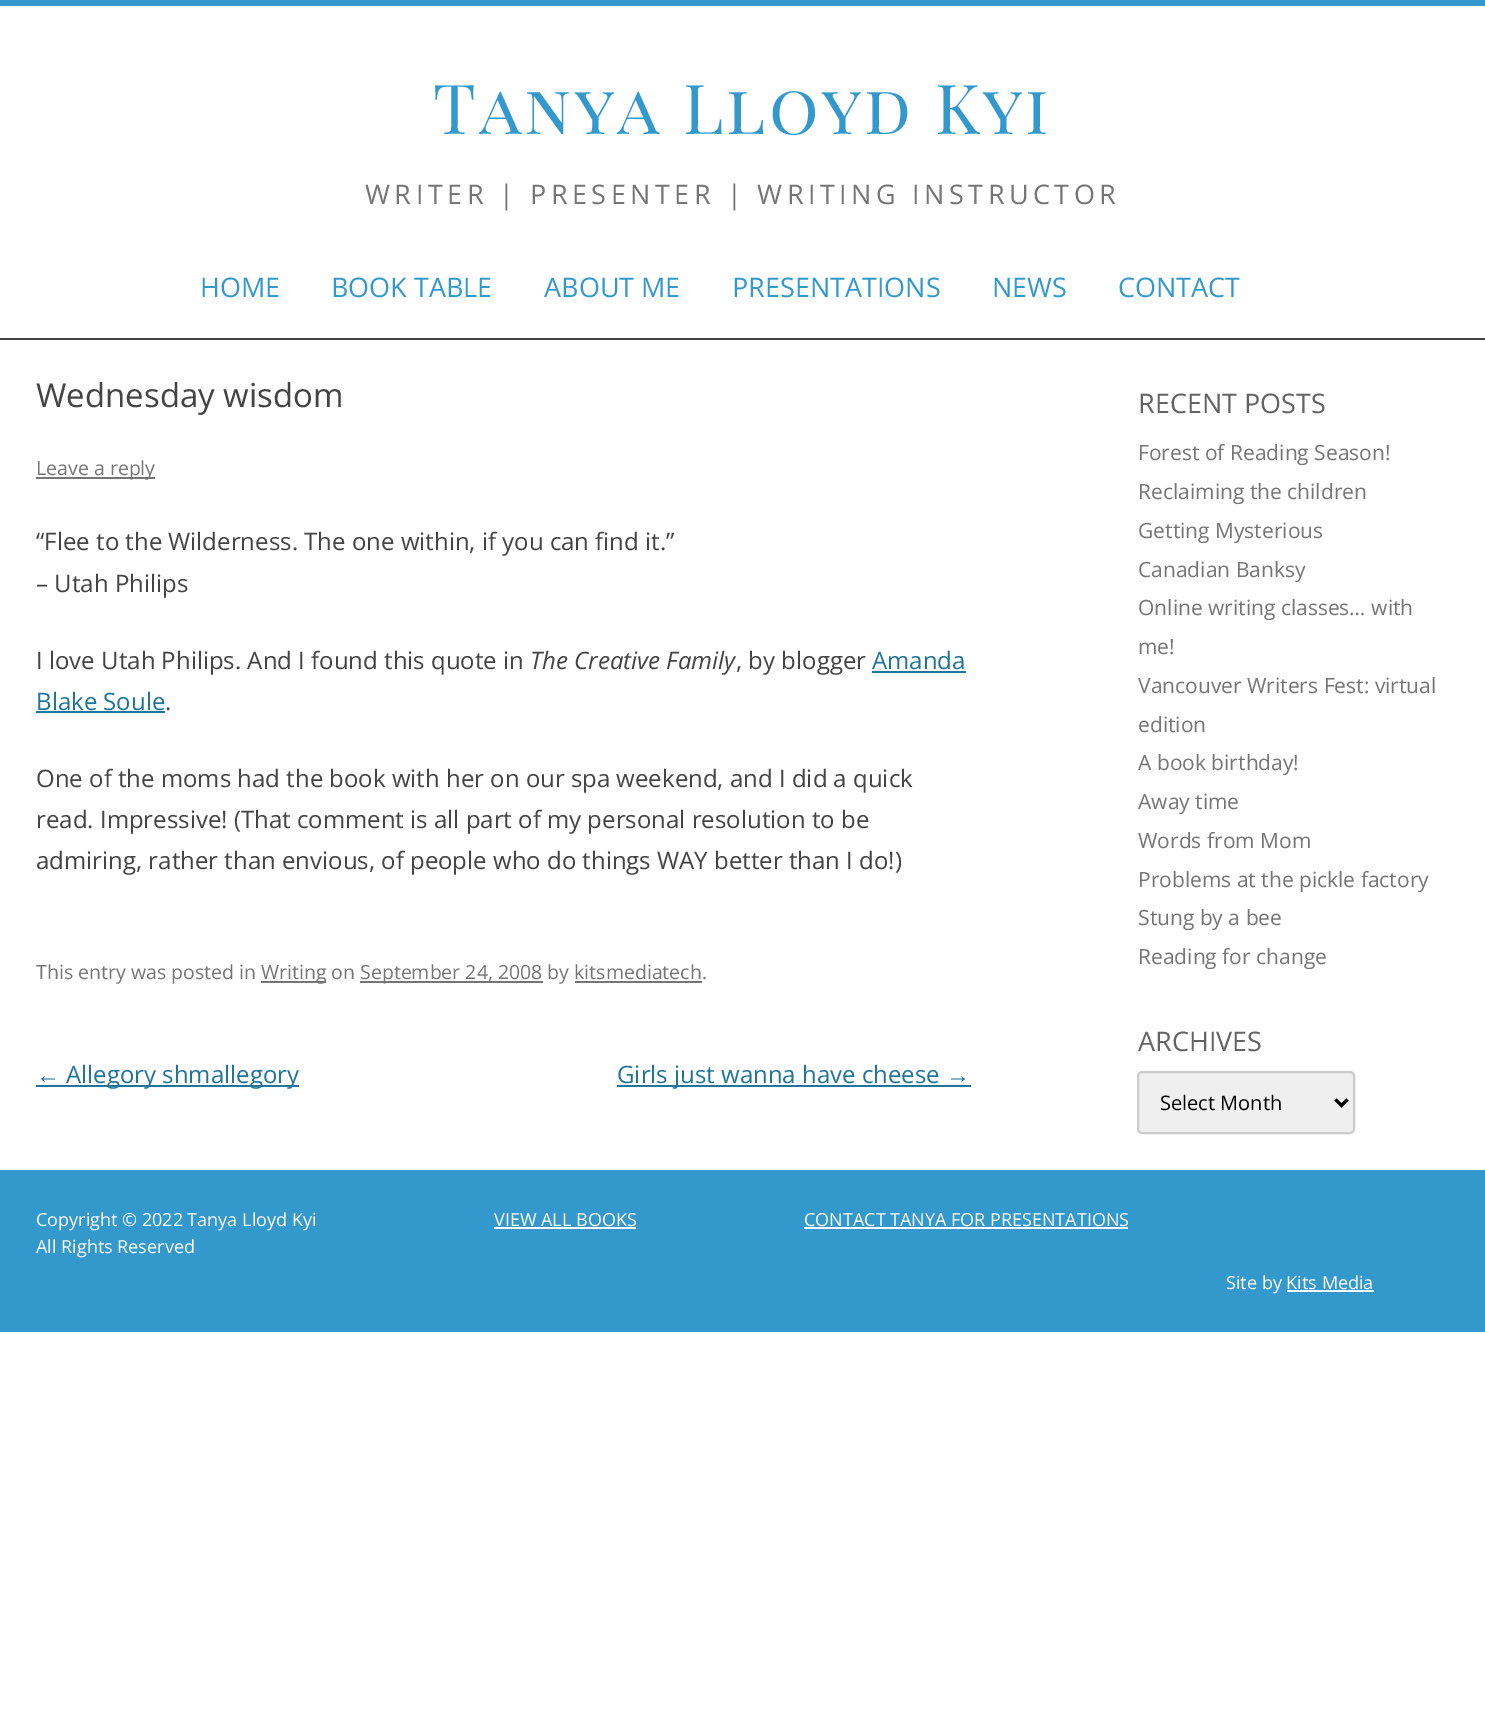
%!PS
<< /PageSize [1485 1733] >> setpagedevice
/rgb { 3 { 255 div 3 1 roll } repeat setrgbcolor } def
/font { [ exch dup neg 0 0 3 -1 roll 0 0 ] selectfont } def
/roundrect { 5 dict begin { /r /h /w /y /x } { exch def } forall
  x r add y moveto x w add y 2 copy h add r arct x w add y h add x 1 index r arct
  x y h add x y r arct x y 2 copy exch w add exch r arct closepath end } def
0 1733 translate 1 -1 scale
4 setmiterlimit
255 255 255 rgb
0 0 1485 1733 rectfill
[
  [0 0 1485 6 51 152 204]
  [0 338 1485 2 68 68 68]
  [36 477 119 2 117 117 117]
  [872 671 94 2 33 117 155]
  [36 711 129 2 33 117 155]
  [261 981 65 2 117 117 117]
  [360 981 183 2 117 117 117]
  [575 981 127 2 117 117 117]
  [36 1085 263 2 33 117 155]
  [617 1085 354 2 33 117 155]
] { aload pop rgb rectfill } forall
239 239 239 rgb
1138 1072 216 61 4 roundrect gsave fill grestore
204 204 204 rgb
2 setlinewidth
stroke
0 0 0 rgb
3 setlinewidth
1335.5 1099.5 moveto 1341.5 1105.5 lineto 1347.5 1099.5 lineto stroke
[
  [0 1170 1485 162 51 152 204]
  [494 1227 142 2 255 255 255]
  [804 1227 324 2 255 255 255]
  [1287 1290 87 2 255 255 255]
] { aload pop rgb rectfill } forall
/PlayfairDisplaySC-Regular 69 font
51 153 204 rgb
433 134 moveto 3 0 (Tanya Lloyd Kyi) ashow
/OpenSans-Regular 27 font
117 117 117 rgb
365 204 moveto 4.5 0 (WRITER | PRESENTER | WRITING INSTRUCTOR) ashow
51 153 204 rgb
[
  [(HOME) 200 297]
  [(BOOK TABLE) 331 297]
  [(ABOUT ME) 544 297]
  [(PRESENTATIONS) 732 297]
  [(NEWS) 992 297]
  [(CONTACT) 1118 297]
] { aload pop moveto show } forall
/OpenSans-Regular 33 font
68 68 68 rgb
36 407 moveto (Wednesday wisdom) show
/OpenSans-Regular 19.5 font
117 117 117 rgb
36 475 moveto (Leave a reply) show
/OpenSans-Regular 24 font
68 68 68 rgb
[
  [(“Flee to the Wilderness. The one within, if you can find it.”) 36 550]
  [(– Utah Philips) 36 592]
  [(I love Utah Philips. And I found this quote in) 36 669]
] { aload pop moveto show } forall
/OpenSans-Italic 24 font
530 669 moveto (The Creative Family) show
/OpenSans-Regular 24 font
736 669 moveto (, by blogger) show
33 117 155 rgb
872 669 moveto (Amanda) show
36 710 moveto (Blake Soule) show
68 68 68 rgb
[
  [(.) 165 710]
  [(One of the moms had the book with her on our spa weekend, and I did a quick) 36 787]
  [(read. Impressive! \(That comment is all part of my personal resolution to be) 36 828]
  [(admiring, rather than envious, of people who do things WAY better than I do!\)) 36 869]
] { aload pop moveto show } forall
/OpenSans-Regular 19.5 font
117 117 117 rgb
[
  [(This entry was posted in) 36 979]
  [(Writing on) 261 979]
  [(September 24, 2008 by kitsmediatech.) 360 979]
] { aload pop moveto show } forall
/LiberationSans-Regular 24 font
33 117 155 rgb
36 1083 moveto (←) show
/OpenSans-Regular 24 font
66 1083 moveto (Allegory shmallegory) show
617 1083 moveto (Girls just wanna have cheese) show
/LiberationSans-Regular 24 font
946 1083 moveto (→) show
/OpenSans-Regular 27 font
99 99 99 rgb
1138 413 moveto (RECENT POSTS) show
/OpenSans-Regular 21 font
117 117 117 rgb
[
  [(Forest of Reading Season!) 1138 460]
  [(Reclaiming the children) 1138 499]
  [(Getting Mysterious) 1138 538]
  [(Canadian Banksy) 1138 577]
  [(Online writing classes… with) 1138 615]
  [(me!) 1138 654]
  [(Vancouver Writers Fest: virtual) 1138 693]
  [(edition) 1138 732]
  [(A book birthday!) 1138 770]
  [(Away time) 1138 809]
  [(Words from Mom) 1138 848]
  [(Problems at the pickle factory) 1138 887]
  [(Stung by a bee) 1138 925]
  [(Reading for change) 1138 964]
] { aload pop moveto show } forall
/OpenSans-Regular 27 font
99 99 99 rgb
1138 1051 moveto (ARCHIVES) show
/OpenSans-Regular 20 font
0 0 0 rgb
1160 1110 moveto (Select Month) show
/OpenSans-Regular 18 font
255 255 255 rgb
[
  [(Copyright © 2022 Tanya Lloyd Kyi) 36 1226]
  [(All Rights Reserved) 36 1253]
  [(VIEW ALL BOOKS) 494 1226]
  [(CONTACT TANYA FOR PRESENTATIONS) 804 1226]
  [(Site by Kits Media) 1226 1289]
] { aload pop moveto show } forall
showpage
